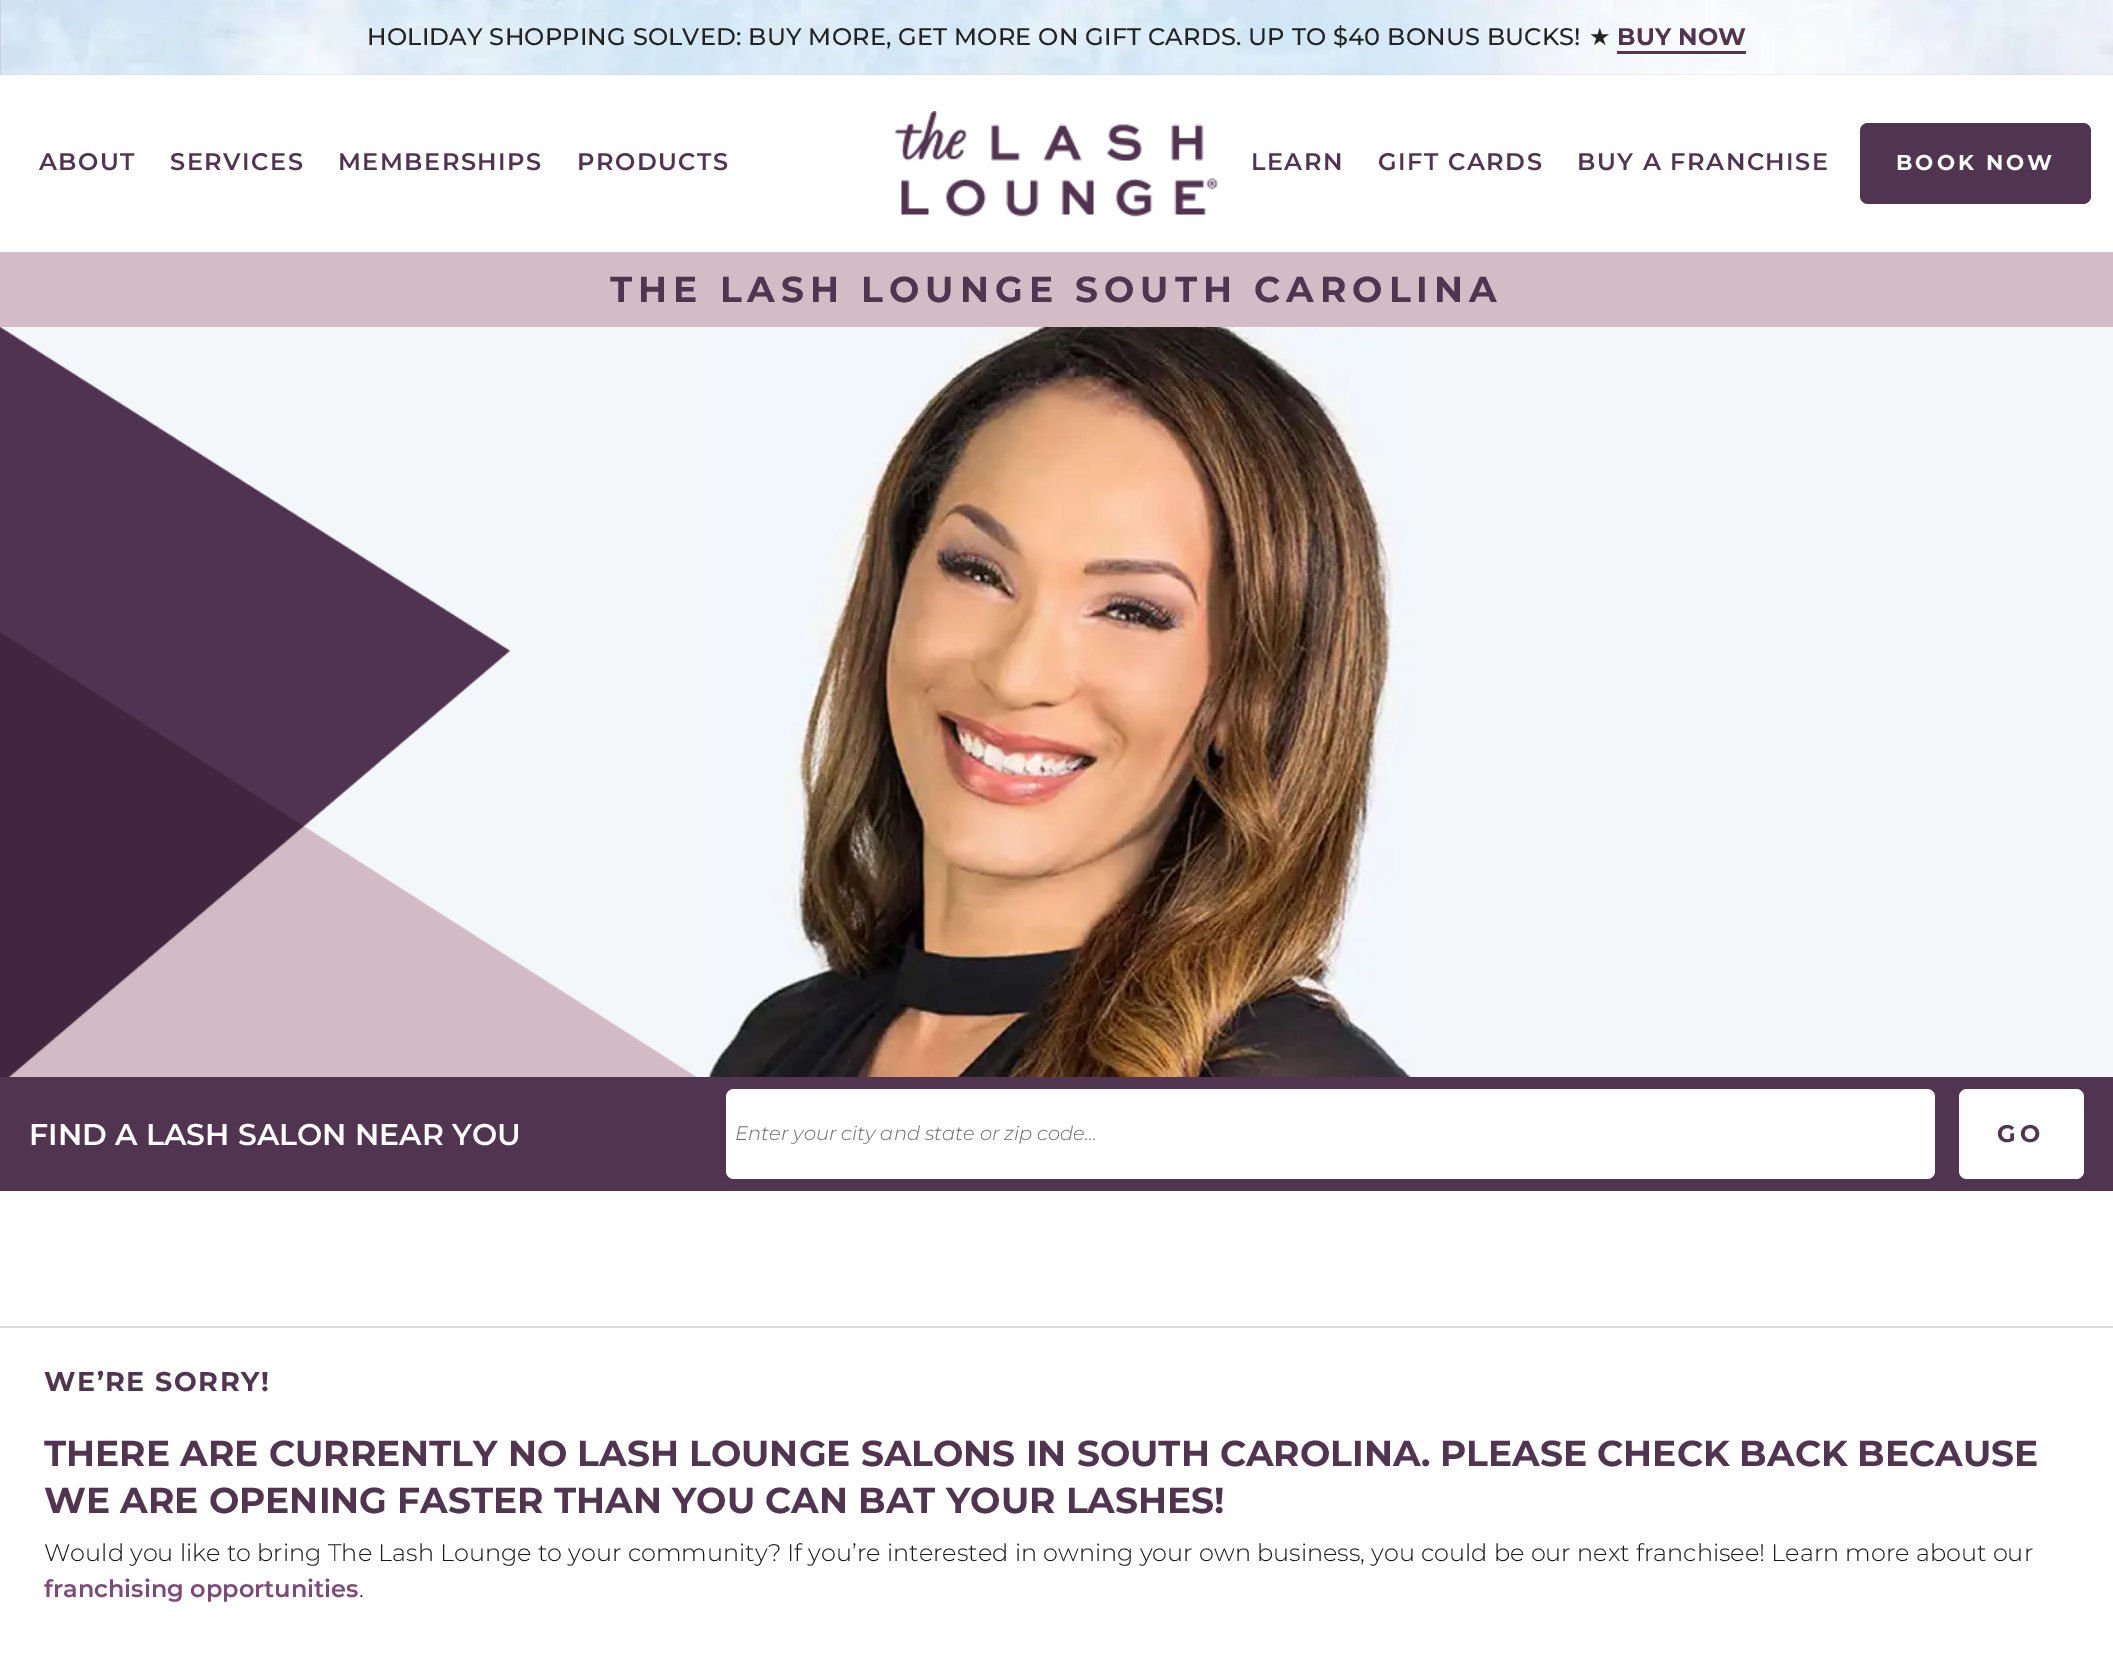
%!PS
<< /PageSize [2113 1667] >> setpagedevice
/rgb { 3 { 255 div 3 1 roll } repeat setrgbcolor } def
/font { [ exch dup neg 0 0 3 -1 roll 0 0 ] selectfont } def
/roundrect { 5 dict begin { /r /h /w /y /x } { exch def } forall
  x r add y moveto x w add y 2 copy h add r arct x w add y h add x 1 index r arct
  x y h add x y r arct x y 2 copy exch w add exch r arct closepath end } def
/picture { 5 dict begin { /h /w /y /x /name } { exch def } forall
  gsave x y translate w h scale
  w h 8 [w 0 0 h 0 0] name (r) file false 3 colorimage grestore end } def
0 1667 translate 1 -1 scale
4 setmiterlimit
255 255 255 rgb
0 0 2113 1667 rectfill
211 188 197 rgb
0 0 2113 75 rectfill
(img/1.rgb) 0 0 2113 75 picture
81 54 80 rgb
1617 51 129 3 rectfill
(img/2.rgb) 895 111 323 106 picture
81 53 80 rgb
1860 123 231 81 8 roundrect fill
211 188 197 rgb
0 252 2113 75 rectfill
243 247 250 rgb
0 327 2113 750 rectfill
(img/3.rgb) 708 327 703 750 picture
(img/4.rgb) 0 327 697 750 picture
81 53 80 rgb
0 1077 2113 114 rectfill
255 255 255 rgb
726 1089 1209 90 8 roundrect fill
1959 1089 125 90 8 roundrect fill
221 221 221 rgb
0 1326 2113 2 rectfill
/Montserrat-Medium 24 font
35 35 35 rgb
367 45 moveto 0.22 0 (HOLIDAY SHOPPING SOLVED: BUY MORE, GET MORE ON GIFT CARDS. UP TO $40 BONUS BUCKS!) ashow
/DejaVuSans-Regular 24 font
1589 45 moveto 0.22 0 (★) ashow
/Montserrat-Bold 24 font
81 53 80 rgb
1617 45 moveto 0.25 0 (BUY NOW) ashow
/Montserrat-SemiBold 24 font
39 170 moveto 1.5 0 (ABOUT) ashow
170 170 moveto 1.5 0 (SERVICES) ashow
338 170 moveto 1.5 0 (MEMBERSHIPS) ashow
577 170 moveto 1.5 0 (PRODUCTS) ashow
1251 170 moveto 1.5 0 (LEARN) ashow
1378 170 moveto 1.5 0 (GIFT CARDS) ashow
1577 170 moveto 1.5 0 (BUY A FRANCHISE) ashow
/Montserrat-Bold 21.5 font
255 255 255 rgb
1896 170 moveto 3 0 (BOOK NOW) ashow
/Montserrat-Bold 36 font
81 53 80 rgb
610 302 moveto 6 0 (THE LASH LOUNGE SOUTH CAROLINA) ashow
/Montserrat-SemiBold 30 font
255 255 255 rgb
29 1145 moveto (FIND A LASH SALON NEAR YOU) show
/Montserrat-LightItalic 19.5 font
104 104 104 rgb
735 1140 moveto (Enter your city and state or zip code...) show
/Montserrat-Bold 24 font
81 53 80 rgb
1997 1142 moveto 4 0 (GO) ashow
/Montserrat-Bold 27 font
44 1391 moveto 1.5 0 (WE’RE SORRY!) ashow
/Montserrat-Bold 36 font
44 1466 moveto (THERE ARE CURRENTLY NO LASH LOUNGE SALONS IN SOUTH CAROLINA. PLEASE CHECK BACK BECAUSE) show
44 1513 moveto (WE ARE OPENING FASTER THAN YOU CAN BAT YOUR LASHES!) show
/Montserrat-Light 24 font
23 23 23 rgb
44 1561 moveto (Would you like to bring The Lash Lounge to your community? If you’re interested in owning your own business, you could be our next franchisee! Learn more about our) show
/Montserrat-SemiBold 24 font
125 73 124 rgb
44 1597 moveto (franchising opportunities) show
/Montserrat-Light 24 font
23 23 23 rgb
359 1597 moveto (.) show
showpage
